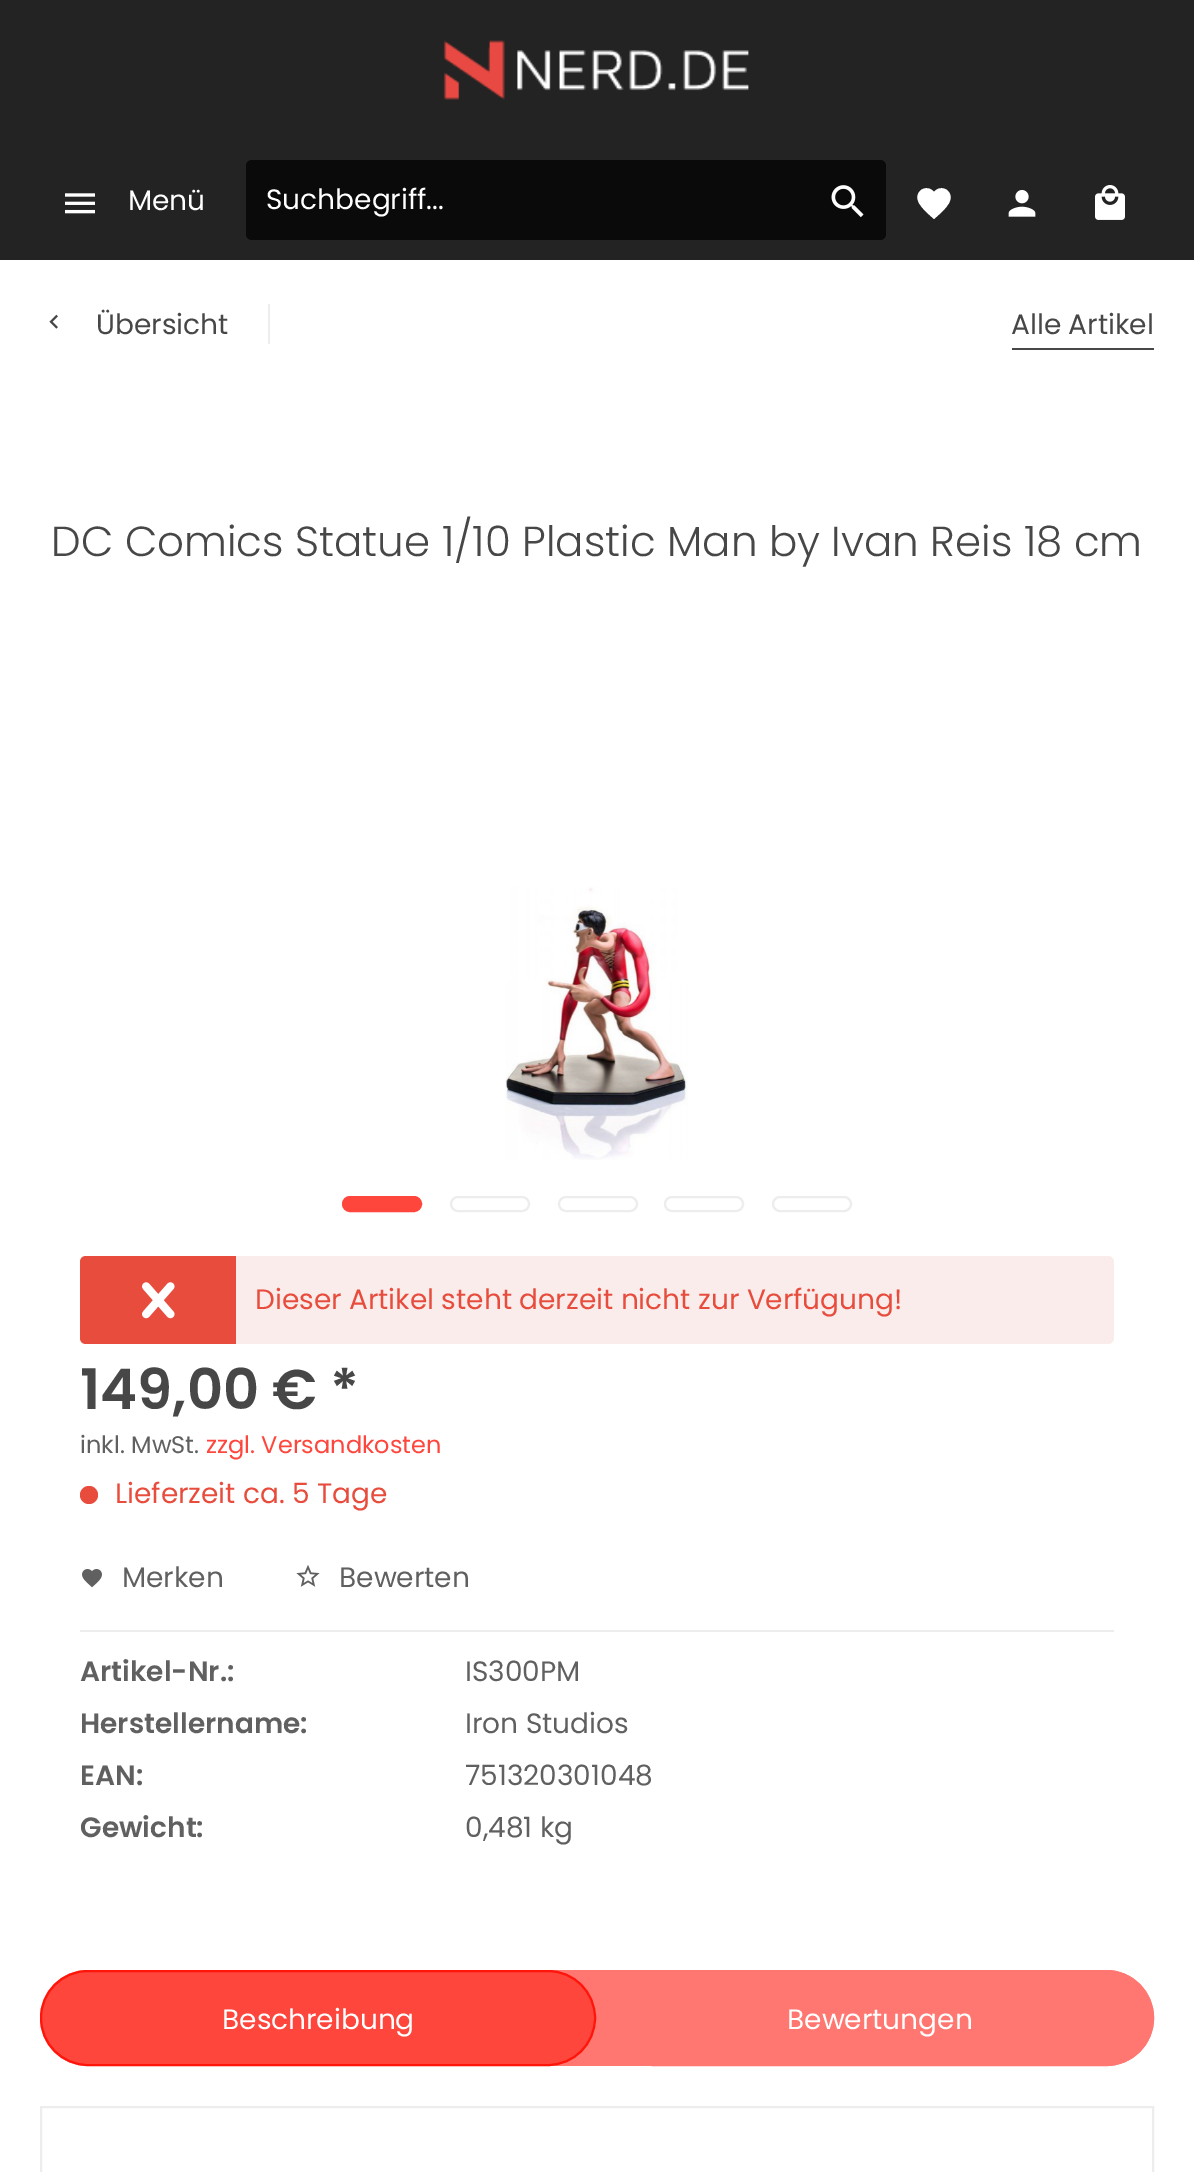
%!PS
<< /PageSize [1194 2172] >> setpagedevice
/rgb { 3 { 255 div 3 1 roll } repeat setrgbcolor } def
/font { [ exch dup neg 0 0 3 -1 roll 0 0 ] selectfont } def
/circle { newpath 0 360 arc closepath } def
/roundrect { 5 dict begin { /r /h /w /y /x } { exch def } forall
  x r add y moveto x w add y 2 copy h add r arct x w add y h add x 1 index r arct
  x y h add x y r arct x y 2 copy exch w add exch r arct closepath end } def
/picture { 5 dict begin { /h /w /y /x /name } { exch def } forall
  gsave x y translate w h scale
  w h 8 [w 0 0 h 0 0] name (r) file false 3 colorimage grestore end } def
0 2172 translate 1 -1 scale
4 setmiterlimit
255 255 255 rgb
0 0 1194 2172 rectfill
35 35 35 rgb
0 0 1194 260 rectfill
(img/1.rgb) 443 40 306 60 picture
(img/2.rgb) 65 193 30 21 picture
10 10 10 rgb
246 160 640 80 6 roundrect fill
(img/3.rgb) 831 185 33 33 picture
255 255 255 rgb
934 219 moveto 928.5 214 921.5 208.5 918.5 202 curveto 913.5 191.5 926.5 183 934 192 curveto 941.5 183 954.5 191.5 949.5 202 curveto 946.5 208.5 939.5 214 934 219 curveto closepath fill
(img/4.rgb) 1008 190 28 27 picture
(img/5.rgb) 1095 185 30 35 picture
(img/6.rgb) 49 314 9 15 picture
237 237 237 rgb
268 304 2 40 rectfill
71 71 71 rgb
1012 348 142 2 rectfill
(img/7.rgb) 505 887 183 273 picture
255 70 61 rgb
343 1197 78 14 7 roundrect gsave fill grestore
2 setlinewidth
stroke
237 237 237 rgb
451 1197 78 14 7 roundrect stroke
559 1197 78 14 7 roundrect stroke
665 1197 78 14 7 roundrect stroke
773 1197 78 14 7 roundrect stroke
250 236 235 rgb
80 1256 1034 88 6 roundrect fill
231 76 60 rgb
86 1256 moveto 236 1256 lineto 236 1344 lineto 86 1344 lineto 82.5 1344 80 1341.5 80 1338 curveto 80 1262 lineto 80 1258.5 82.5 1256 86 1256 curveto closepath fill
(img/8.rgb) 142 1282 33 37 picture
89 1495 9 circle fill
237 237 237 rgb
80 1630 1034 2 rectfill
(img/9.rgb) 82 1569 20 19 picture
(img/10.rgb) 296 1565 24 22 picture
255 119 112 rgb
40 1970 1114 96 48 roundrect fill
255 70 61 rgb
41 1971 554 94 47 roundrect gsave fill grestore
255 21 10 rgb
stroke
255 119 112 rgb
607 1971 546 94 47 roundrect stroke
237 237 237 rgb
41 2107 1112 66 rectstroke
/Poppins-Regular 28 font
255 255 255 rgb
128 210 moveto (Menü) show
266 209 moveto (Suchbegriff...) show
71 71 71 rgb
96 334 moveto (Übersicht) show
1011 334 moveto (Alle Artikel) show
/Poppins-Light 42 font
51 556 moveto (DC Comics Statue 1/10 Plastic Man by Ivan Reis 18 cm) show
/Poppins-Regular 28 font
231 76 60 rgb
255 1309 moveto (Dieser Artikel steht derzeit nicht zur Verfügung!) show
/Poppins-SemiBold 56 font
71 71 71 rgb
80 1409 moveto (149,00 € *) show
/Poppins-Regular 24 font
96 96 96 rgb
80 1453 moveto (inkl. MwSt.) show
255 70 61 rgb
206 1453 moveto (zzgl. Versandkosten) show
/Poppins-Regular 28 font
231 76 60 rgb
115 1503 moveto (Lieferzeit ca. 5 Tage) show
96 96 96 rgb
122 1587 moveto (Merken) show
339 1587 moveto (Bewerten) show
/Poppins-SemiBold 28 font
80 1681 moveto (Artikel-Nr.:) show
/Poppins-Regular 28 font
465 1681 moveto (IS300PM) show
/Poppins-SemiBold 28 font
80 1733 moveto (Herstellername:) show
/Poppins-Regular 28 font
465 1733 moveto (Iron Studios) show
/Poppins-SemiBold 28 font
80 1785 moveto (EAN:) show
/Poppins-Regular 28 font
465 1785 moveto (751320301048) show
/Poppins-SemiBold 28 font
80 1837 moveto (Gewicht:) show
/Poppins-Regular 28 font
465 1837 moveto (0,481 kg) show
255 255 255 rgb
222 2029 moveto (Beschreibung) show
787 2029 moveto (Bewertungen) show
showpage
